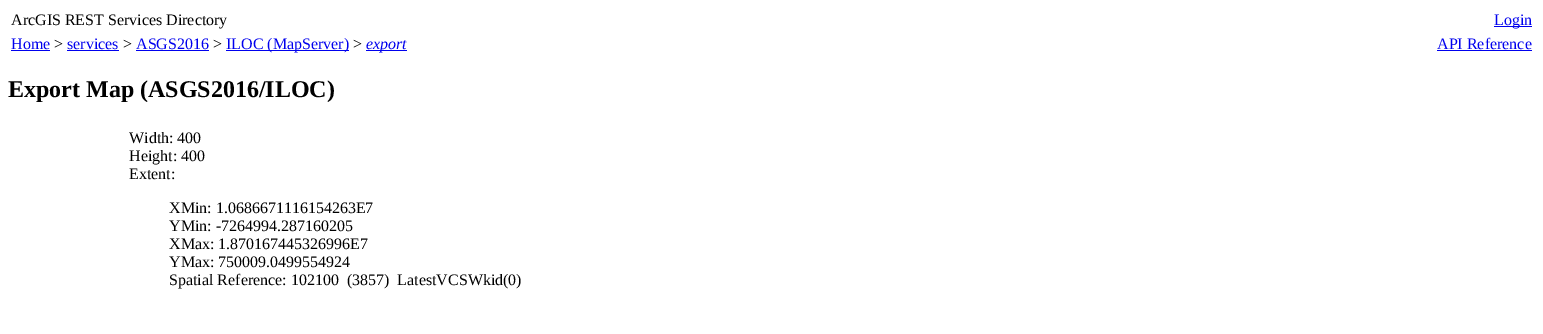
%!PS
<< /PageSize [1543 334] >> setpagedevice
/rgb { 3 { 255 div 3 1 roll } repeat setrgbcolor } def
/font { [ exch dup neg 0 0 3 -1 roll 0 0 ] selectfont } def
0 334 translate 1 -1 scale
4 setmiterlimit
255 255 255 rgb
0 0 1543 334 rectfill
[
  [1494 26 38 1 0 0 238]
  [11 50 39 1 0 0 238]
  [67 50 52 1 0 0 238]
  [136 50 73 1 0 0 238]
  [226 50 123 1 0 0 238]
  [366 50 41 1 0 0 238]
  [1437 50 95 1 0 0 238]
] { aload pop rgb rectfill } forall
/LiberationSerif-Regular 16 font
0 0 0 rgb
11 25 moveto (ArcGIS REST Services Directory) show
0 0 238 rgb
1494 25 moveto (Login) show
11 49 moveto (Home) show
0 0 0 rgb
54 49 moveto (>) show
0 0 238 rgb
67 49 moveto (services) show
0 0 0 rgb
123 49 moveto (>) show
0 0 238 rgb
136 49 moveto (ASGS2016) show
0 0 0 rgb
213 49 moveto (>) show
0 0 238 rgb
226 49 moveto (ILOC \(MapServer\)) show
0 0 0 rgb
353 49 moveto (>) show
/LiberationSerif-Italic 16 font
0 0 238 rgb
366 49 moveto (export) show
/LiberationSerif-Regular 16 font
1437 49 moveto (API Reference) show
/LiberationSerif-Bold 24 font
0 0 0 rgb
8 97 moveto (Export Map \(ASGS2016/ILOC\)) show
/LiberationSerif-Regular 16 font
[
  [(Width: 400) 129 143]
  [(Height: 400) 129 161]
  [(Extent:) 129 179]
  [(XMin: 1.0686671116154263E7) 169 213]
  [(YMin: -7264994.287160205) 169 231]
  [(XMax: 1.870167445326996E7) 169 249]
  [(YMax: 750009.0499554924) 169 267]
  [(Spatial Reference: 102100  \(3857\)  LatestVCSWkid\(0\)) 169 285]
] { aload pop moveto show } forall
showpage
